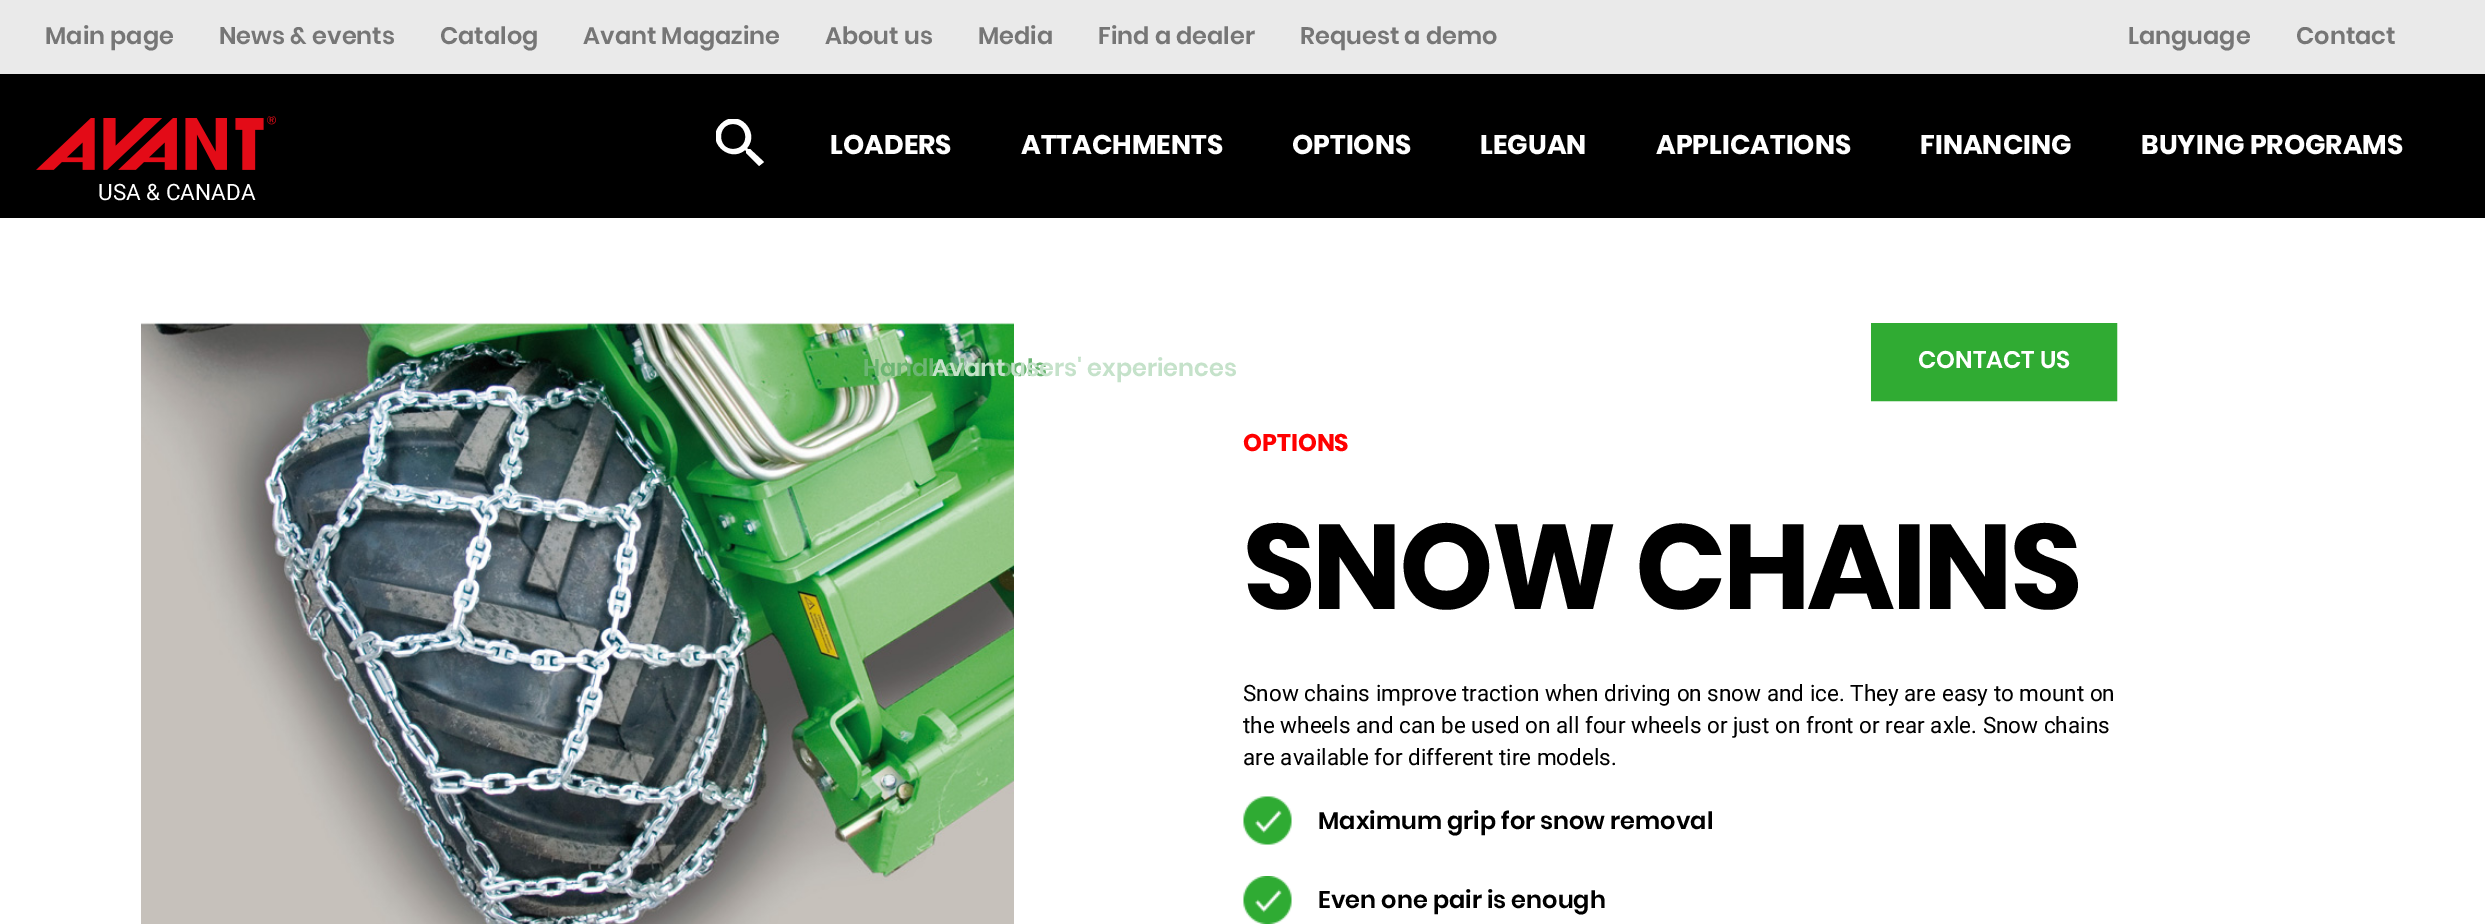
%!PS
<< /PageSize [2485 924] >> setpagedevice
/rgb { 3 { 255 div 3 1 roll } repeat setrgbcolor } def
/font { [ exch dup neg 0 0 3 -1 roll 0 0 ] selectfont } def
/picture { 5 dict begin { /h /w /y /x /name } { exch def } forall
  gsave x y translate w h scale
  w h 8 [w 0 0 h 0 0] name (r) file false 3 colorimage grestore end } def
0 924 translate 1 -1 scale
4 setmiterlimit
255 255 255 rgb
0 0 2485 924 rectfill
234 234 234 rgb
0 0 2485 74 rectfill
0 0 0 rgb
0 74 2485 144 rectfill
(img/1.rgb) 36 116 240 54 picture
gsave
716 119 48 48 rectclip
255 255 255 rgb
750 149 moveto 748 149 lineto 747 148 lineto 761 132 737 107 721 124 curveto 704 140 729 164 745 150 curveto 746 151 lineto 746 153 lineto 759 166 lineto 764 162 lineto closepath 733 149 moveto 717 149 717 124 733 124 curveto 749 124 750 149 733 149 curveto closepath fill
grestore
(img/2.rgb) 141 322 873 602 picture
48 171 51 rgb
2 setlinewidth
1872 324 244 76 rectstroke
1873 325 242 74 rectfill
(img/3.rgb) 1243 796 49 49 picture
(img/4.rgb) 1243 876 49 48 picture
/Poppins-SemiBold 24 font
118 118 118 rgb
[
  [(Main page) 45 44]
  [(News & events) 219 44]
  [(Catalog) 440 44]
  [(Avant Magazine) 583 44]
  [(About us) 825 44]
  [(Media) 978 44]
  [(Find a dealer) 1098 44]
  [(Request a demo) 1300 44]
  [(Language) 2128 44]
  [(Contact) 2296 44]
] { aload pop moveto show } forall
/Roboto-Regular 22.5 font
255 255 255 rgb
98 200 moveto (USA & CANADA) show
/Poppins-Bold 27 font
830 154 moveto (LOADERS) show
1021 154 moveto (ATTACHMENTS) show
/Poppins-SemiBold 24 font
108 181 115 rgb
863 376 moveto (Handheld tools) show
/Poppins-Bold 27 font
255 255 255 rgb
1656 154 moveto (APPLICATIONS) show
/Poppins-SemiBold 24 font
197 226 202 rgb
932 376 moveto (Avant users' experiences) show
/Poppins-Bold 27 font
255 255 255 rgb
[
  [(OPTIONS) 1292 154]
  [(LEGUAN) 1480 154]
  [(FINANCING) 1920 154]
  [(BUYING PROGRAMS) 2141 154]
] { aload pop moveto show } forall
/Poppins-SemiBold 24 font
1918 368 moveto (CONTACT US) show
/Poppins-Bold 24 font
255 0 0 rgb
1243 451 moveto (OPTIONS) show
/Poppins-Bold 120 font
0 0 0 rgb
1243 609 moveto -3 0 (SNOW CHAINS) ashow
/Roboto-Regular 22.5 font
[
  [(Snow chains improve traction when driving on snow and ice. They are easy to mount on) 1243 701]
  [(the wheels and can be used on all four wheels or just on front or rear axle. Snow chains) 1243 733]
  [(are available for different tire models.) 1243 765]
] { aload pop moveto show } forall
/Poppins-SemiBold 24 font
1318 829 moveto (Maximum grip for snow removal) show
1318 908 moveto (Even one pair is enough) show
showpage
